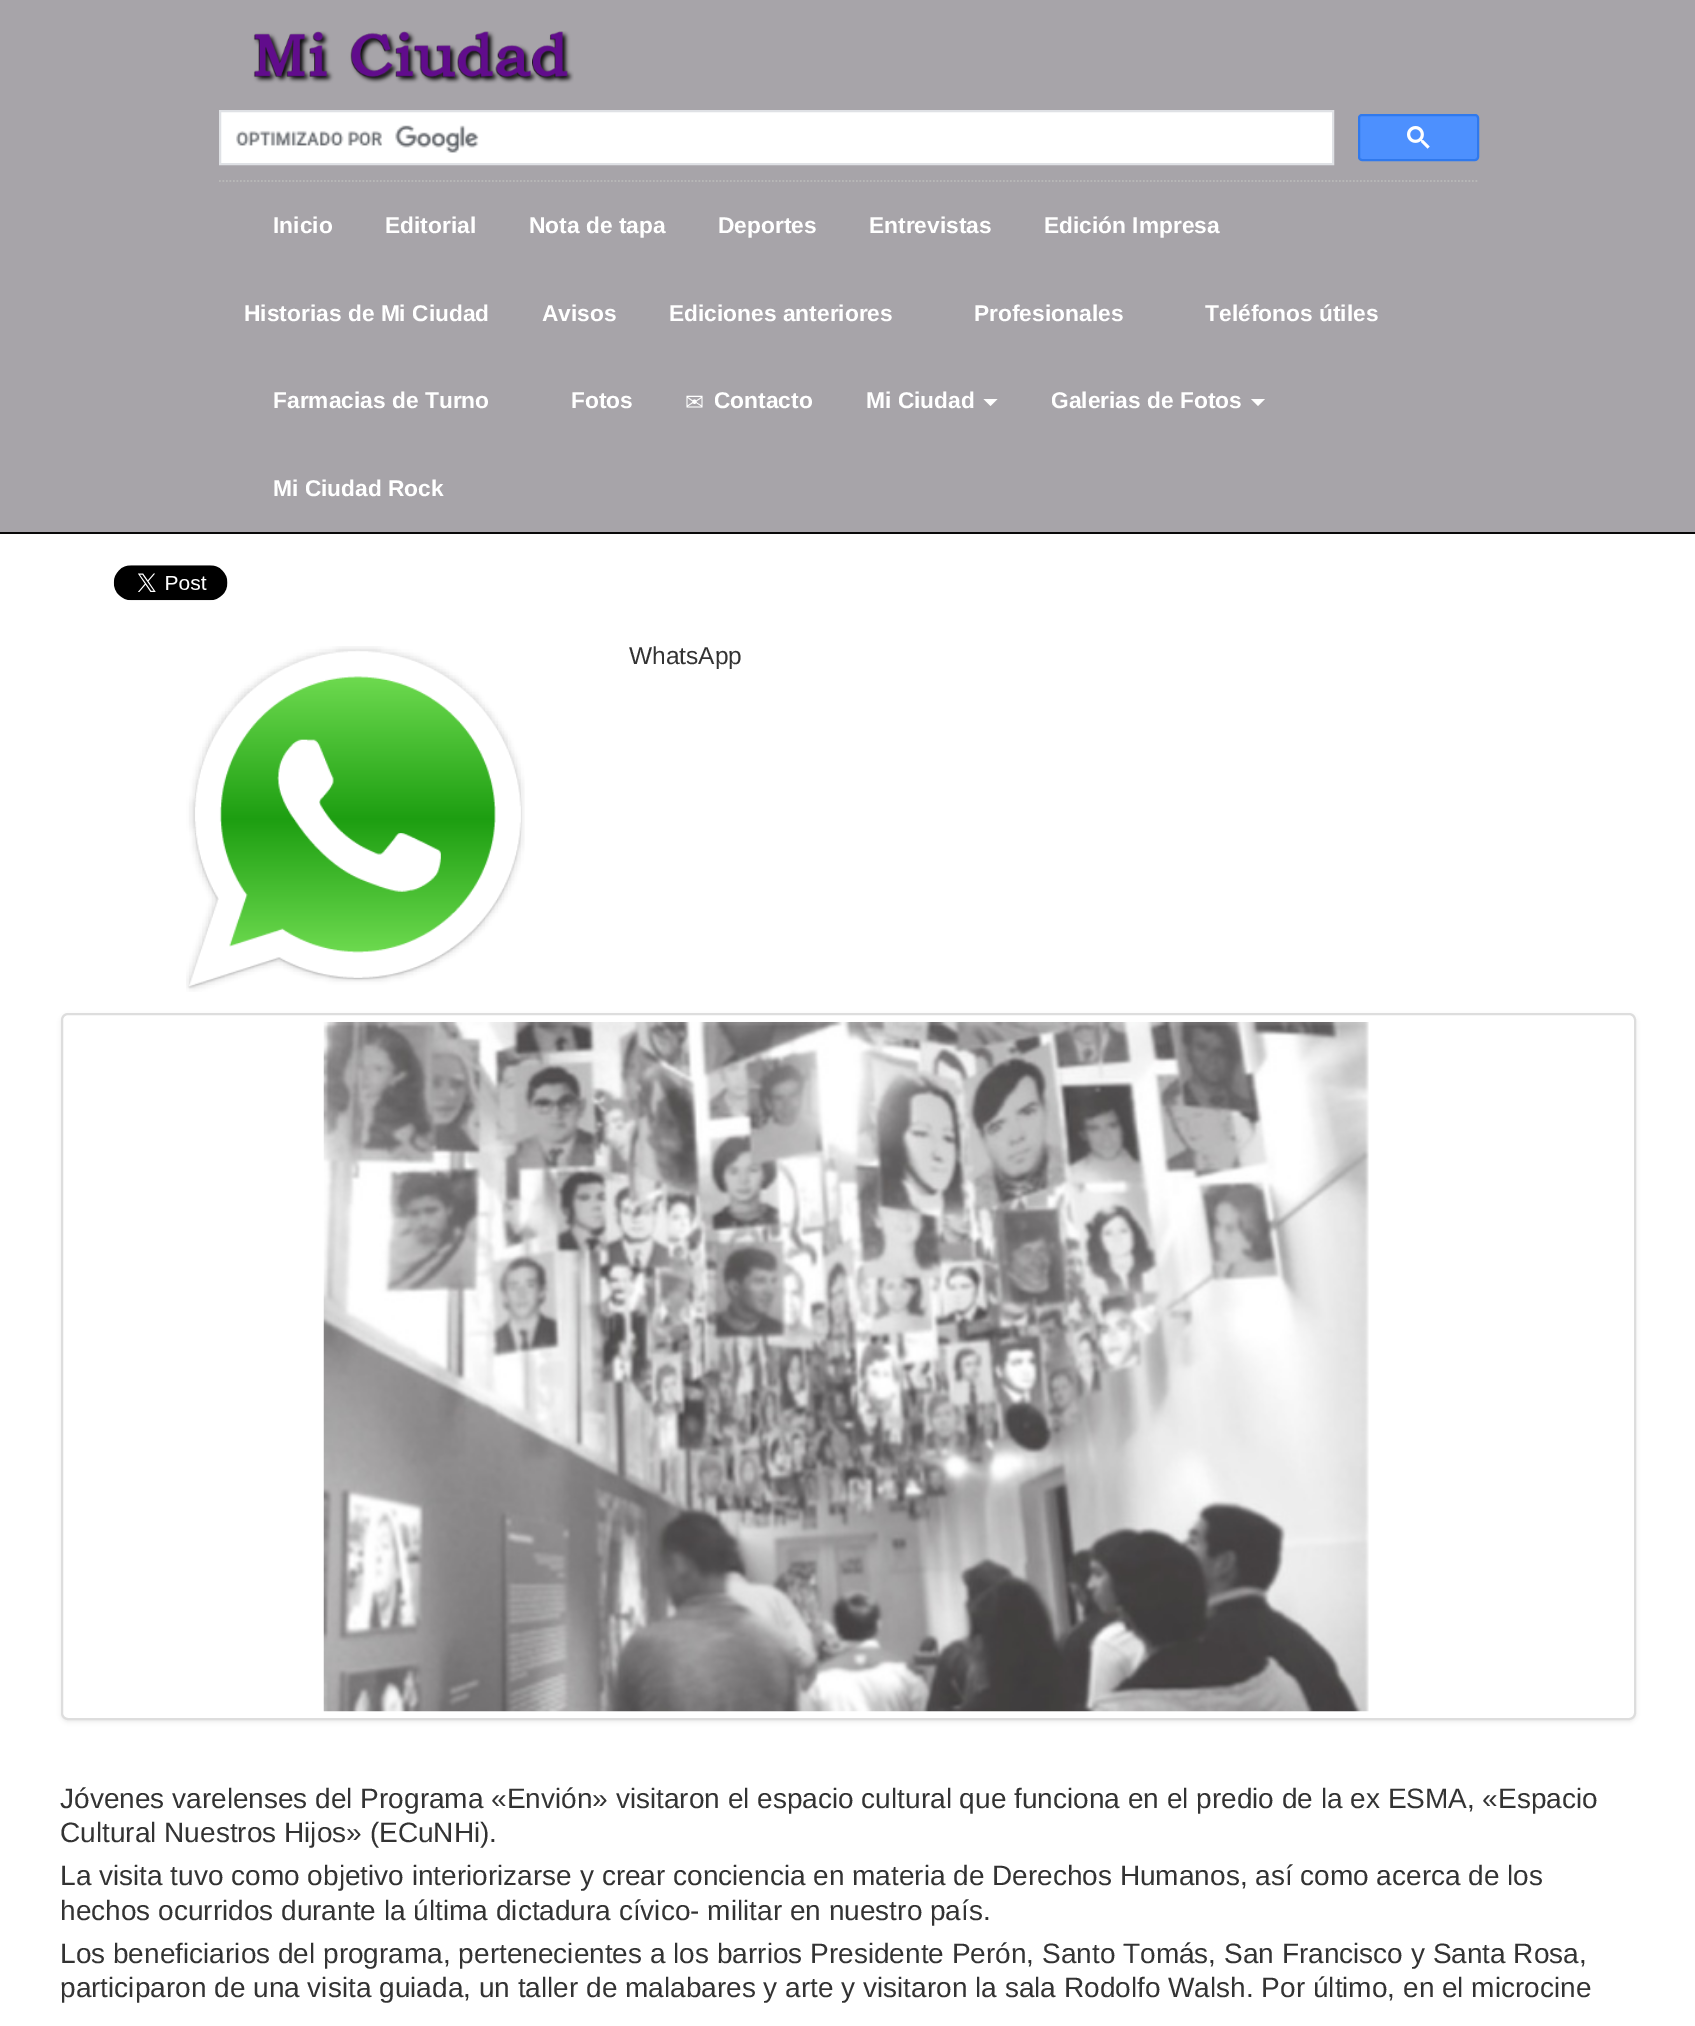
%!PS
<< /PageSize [1695 2026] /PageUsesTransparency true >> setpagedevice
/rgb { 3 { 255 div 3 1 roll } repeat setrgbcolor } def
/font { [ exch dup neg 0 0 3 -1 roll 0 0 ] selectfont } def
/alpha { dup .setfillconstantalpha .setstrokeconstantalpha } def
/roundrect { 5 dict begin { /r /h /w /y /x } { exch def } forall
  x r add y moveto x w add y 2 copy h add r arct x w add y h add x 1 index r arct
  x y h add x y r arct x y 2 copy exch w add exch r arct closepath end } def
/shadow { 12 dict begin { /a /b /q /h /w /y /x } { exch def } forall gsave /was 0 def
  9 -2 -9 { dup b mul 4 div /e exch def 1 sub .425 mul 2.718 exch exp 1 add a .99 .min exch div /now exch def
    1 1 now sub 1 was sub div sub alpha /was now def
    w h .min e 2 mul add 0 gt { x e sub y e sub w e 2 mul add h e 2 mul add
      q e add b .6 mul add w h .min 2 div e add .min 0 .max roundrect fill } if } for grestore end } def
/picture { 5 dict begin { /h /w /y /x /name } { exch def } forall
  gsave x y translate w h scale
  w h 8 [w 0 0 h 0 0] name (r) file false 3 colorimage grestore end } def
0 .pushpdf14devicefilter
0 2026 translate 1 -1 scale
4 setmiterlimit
255 255 255 rgb
0 0 1695 2026 rectfill
167 164 169 rgb
0 0 1695 532 rectfill
8 8 8 rgb
0 532 1695 2 rectfill
(img/1.rgb) 253 31 321 53 picture
255 255 255 rgb
220 111 moveto 1333 111 lineto 1333 164 lineto 220 164 lineto closepath gsave fill grestore
223 225 229 rgb
2 setlinewidth
stroke
(img/2.rgb) 236 125 243 28 picture
77 144 254 rgb
1359 115 119 45 3 roundrect gsave fill grestore
48 121 237 rgb
stroke
(img/3.rgb) 1407 126 23 23 picture
183 183 183 rgb
1.8 setlinewidth
[1.75 1.75] 0 setdash
219 181 moveto 1479 181 lineto stroke
255 255 255 rgb
983.5 399 moveto 997.5 399 lineto 990.5 406 lineto closepath fill
1251 399 moveto 1265 399 lineto 1258 406 lineto closepath fill
(img/4.rgb) 113 565 115 36 picture
(img/5.rgb) 186 646 339 346 picture
0 0 0 rgb
61 1015 1575 707 7 2 0.07 shadow
255 255 255 rgb
62 1014 1573 705 6 roundrect gsave fill grestore
221 221 221 rgb
2 setlinewidth
[] 0 setdash
stroke
(img/6.rgb) 323 1022 1046 690 picture
/LiberationSans-Bold 22.75 font
255 255 255 rgb
[
  [(Inicio) 273 233]
  [(Editorial) 385 233]
  [(Nota de tapa) 529 233]
  [(Deportes) 718 233]
  [(Entrevistas) 869 233]
  [(Edición Impresa) 1044 233]
  [(Historias de Mi Ciudad) 244 321]
  [(Avisos) 542 321]
  [(Ediciones anteriores) 669 321]
  [(Profesionales) 974 321]
  [(Teléfonos útiles) 1205 321]
  [(Farmacias de Turno) 273 408]
  [(Fotos) 571 408]
] { aload pop moveto show } forall
/DejaVuSans-Regular 22.75 font
685 410 moveto (✉) show
/LiberationSans-Bold 22.75 font
[
  [(Contacto) 714 408]
  [(Mi Ciudad) 866 408]
  [(Galerias de Fotos) 1051 408]
  [(Mi Ciudad Rock) 273 496]
] { aload pop moveto show } forall
/LiberationSans-Regular 24.5 font
51 51 51 rgb
629 664 moveto (WhatsApp) show
/LiberationSans-Regular 28 font
[
  [(Jóvenes varelenses del Programa «Envión» visitaron el espacio cultural que funciona en el predio de la ex ESMA, «Espacio) 60 1808]
  [(Cultural Nuestros Hijos» \(ECuNHi\).) 60 1842]
  [(La visita tuvo como objetivo interiorizarse y crear conciencia en materia de Derechos Humanos, así como acerca de los) 60 1885]
  [(hechos ocurridos durante la última dictadura cívico- militar en nuestro país.) 60 1920]
  [(Los beneficiarios del programa, pertenecientes a los barrios Presidente Perón, Santo Tomás, San Francisco y Santa Rosa,) 60 1963]
  [(participaron de una visita guiada, un taller de malabares y arte y visitaron la sala Rodolfo Walsh. Por último, en el microcine) 60 1997]
] { aload pop moveto show } forall
.poppdf14devicefilter showpage
